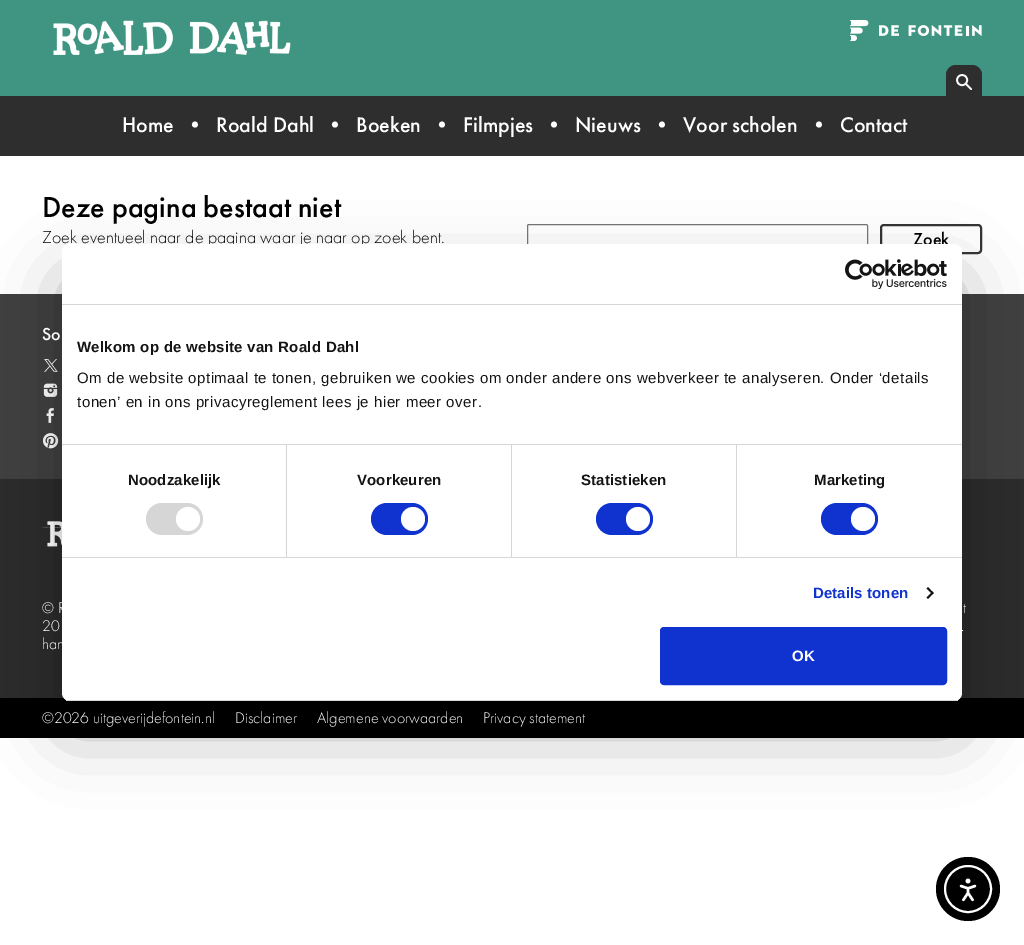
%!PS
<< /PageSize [1024 945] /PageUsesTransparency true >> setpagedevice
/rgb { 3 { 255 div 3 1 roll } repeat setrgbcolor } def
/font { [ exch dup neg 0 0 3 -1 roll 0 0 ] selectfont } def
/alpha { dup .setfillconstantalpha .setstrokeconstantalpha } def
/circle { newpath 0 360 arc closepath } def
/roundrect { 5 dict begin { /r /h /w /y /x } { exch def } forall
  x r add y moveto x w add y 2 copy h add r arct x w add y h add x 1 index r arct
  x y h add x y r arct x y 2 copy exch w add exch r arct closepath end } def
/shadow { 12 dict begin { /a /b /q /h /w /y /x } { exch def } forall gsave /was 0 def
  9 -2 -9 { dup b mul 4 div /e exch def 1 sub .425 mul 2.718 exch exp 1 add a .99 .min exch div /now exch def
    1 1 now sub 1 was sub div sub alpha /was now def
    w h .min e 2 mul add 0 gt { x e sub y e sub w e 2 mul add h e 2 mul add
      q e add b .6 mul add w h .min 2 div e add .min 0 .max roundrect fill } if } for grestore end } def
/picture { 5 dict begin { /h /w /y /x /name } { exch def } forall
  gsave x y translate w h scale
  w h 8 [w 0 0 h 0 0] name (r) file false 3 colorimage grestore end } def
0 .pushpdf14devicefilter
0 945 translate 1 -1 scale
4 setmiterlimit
255 255 255 rgb
0 0 1024 945 rectfill
63 149 129 rgb
0 0 1024 96 rectfill
(img/1.rgb) 53 20 238 35 picture
(img/2.rgb) 850 20 132 21 picture
46 46 46 rgb
956 65 moveto 972 65 lineto 977.5 65 982 69.5 982 75 curveto 982 96 lineto 946 96 lineto 946 75 lineto 946 69.5 950.5 65 956 65 curveto closepath fill
(img/3.rgb) 956 74 16 16 picture
0 96 1024 60 rectfill
118 118 118 rgb
527.5 224.5 340 29 1.5 roundrect stroke
54 53 53 rgb
2 setlinewidth
881 225 100 28 3 roundrect stroke
65 65 65 rgb
0 294 1024 185 rectfill
(img/4.rgb) 44 359 14 13 picture
(img/5.rgb) 43 383 15 14 picture
(img/6.rgb) 46 408 8 15 picture
(img/7.rgb) 43 433 16 16 picture
44 44 44 rgb
0 479 1024 219 rectfill
(img/8.rgb) 42 521 20 26 picture
0 0 0 rgb
0 698 1024 40 rectfill
62 276 900 457 8 34 0.3 shadow
968 889 32 circle fill
255 255 255 rgb
968 889 23 circle stroke
(img/10.rgb) 959 878 18 24 picture
/FuturaPT-Medium 22 font
[
  [(Home) 122 132]
  [(•) 184 132]
  [(Roald Dahl) 216 132]
  [(•) 324 132]
  [(Boeken) 356 132]
  [(•) 431 132]
  [(Filmpjes) 463 132]
  [(•) 543 132]
  [(Nieuws) 575 132]
  [(•) 651 132]
  [(Voor scholen) 683 132]
  [(•) 808 132]
  [(Contact) 840 132]
] { aload pop moveto show } forall
/FuturaPT-Medium 30 font
0 0 0 rgb
42 217 moveto (Deze pagina bestaat niet) show
/FuturaPT-Light 18 font
42 243 moveto (Zoek eventueel naar de pagina waar je naar op zoek bent.) show
/FuturaPT-Medium 18 font
913 245 moveto (Zoek) show
255 255 255 rgb
42 340 moveto (So) show
/FuturaPT-Light 16 font
[
  [(© R) 42 613]
  [(20) 42 631]
  [(han) 42 649]
  [(t) 963 613]
  [(.) 961 631]
  [(©2026 uitgeverijdefontein.nl) 42 723]
  [(Disclaimer) 235 723]
  [(Algemene voorwaarden) 317 723]
  [(Privacy statement) 483 723]
] { aload pop moveto show } forall
62 244 900 457 8 roundrect fill
214 214 214 rgb
62 304 900 1 rectfill
(img/9.rgb) 845 259 102 30 picture
62 444 900 1 rectfill
/LiberationSans-Bold 15 font
20 20 20 rgb
77 352 moveto 0.25 0 (Welkom op de website van Roald Dahl) ashow
/LiberationSans-Regular 15 font
77 383 moveto 0.5 0 (Om de website optimaal te tonen, gebruiken we cookies om onder andere ons webverkeer te analyseren. Onder ‘details) ashow
77 407 moveto 0.5 0 (tonen’ en in ons privacyreglement lees je hier meer over.) ashow
214 214 214 rgb
62 557 900 1 rectfill
286 445 1 112 rectfill
/LiberationSans-Bold 15 font
20 20 20 rgb
128 485 moveto 0.1 0 (Noodzakelijk) ashow
214 214 214 rgb
146 503 57 32 16 roundrect fill
255 255 255 rgb
188 519 12 circle fill
214 214 214 rgb
511 445 1 112 rectfill
20 20 20 rgb
357 485 moveto 0.1 0 (Voorkeuren) ashow
16 50 207 rgb
371 503 57 32 16 roundrect fill
255 255 255 rgb
413 519 12 circle fill
214 214 214 rgb
736 445 1 112 rectfill
20 20 20 rgb
581 485 moveto 0.1 0 (Statistieken) ashow
16 50 207 rgb
596 503 57 32 16 roundrect fill
255 255 255 rgb
638 519 12 circle fill
20 20 20 rgb
814 485 moveto 0.1 0 (Marketing) ashow
16 50 207 rgb
821 503 57 32 16 roundrect fill
255 255 255 rgb
863 519 12 circle fill
16 50 207 rgb
813 598 moveto 0.1 0 (Details tonen) ashow
20 20 20 rgb
928 587 moveto 933.5 593 lineto 932.5 594.5 lineto 926.5 588.5 lineto closepath fill
932.5 591.5 moveto 933.5 593 lineto 928 599 lineto 926.5 597.5 lineto closepath fill
gsave
62 244 900 457 8 roundrect clip newpath
214 214 214 rgb
62 700 900 1 rectfill
grestore
16 50 207 rgb
661 628 285 56 3 roundrect gsave fill grestore
stroke
255 255 255 rgb
792 661 moveto (OK) show
.poppdf14devicefilter showpage
